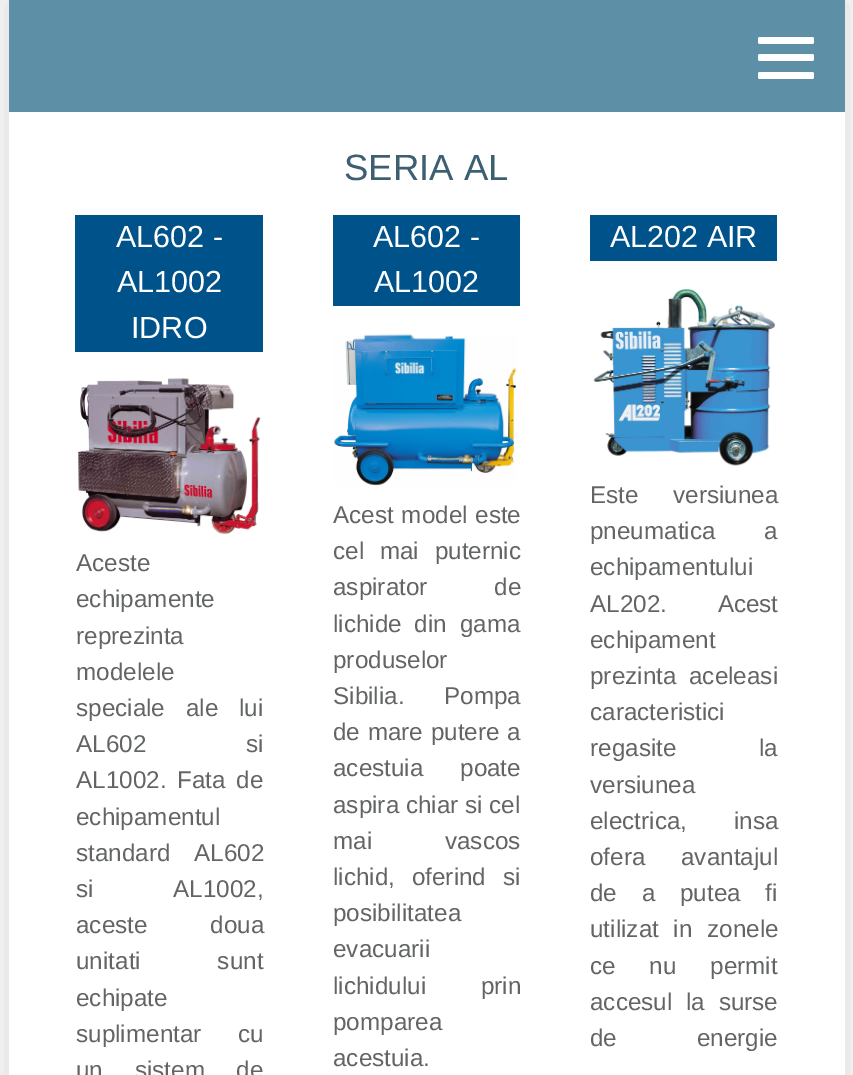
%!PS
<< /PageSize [853 1075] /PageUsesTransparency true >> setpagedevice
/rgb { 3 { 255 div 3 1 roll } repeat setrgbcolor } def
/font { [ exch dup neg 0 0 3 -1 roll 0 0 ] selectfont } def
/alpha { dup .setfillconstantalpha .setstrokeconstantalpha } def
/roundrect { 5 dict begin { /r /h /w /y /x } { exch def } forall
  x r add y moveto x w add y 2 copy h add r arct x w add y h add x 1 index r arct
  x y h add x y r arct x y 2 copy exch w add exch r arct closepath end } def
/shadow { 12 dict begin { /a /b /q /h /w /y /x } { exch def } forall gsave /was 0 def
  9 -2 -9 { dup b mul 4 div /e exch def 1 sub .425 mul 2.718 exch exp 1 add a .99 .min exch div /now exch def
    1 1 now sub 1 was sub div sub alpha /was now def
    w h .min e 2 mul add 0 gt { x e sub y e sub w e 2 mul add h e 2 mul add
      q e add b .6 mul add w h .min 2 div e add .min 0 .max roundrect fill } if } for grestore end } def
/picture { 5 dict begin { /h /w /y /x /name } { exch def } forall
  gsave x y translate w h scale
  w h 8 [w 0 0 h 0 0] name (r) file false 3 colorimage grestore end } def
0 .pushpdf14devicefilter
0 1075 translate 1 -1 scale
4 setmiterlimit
246 246 246 rgb
0 0 853 1075 rectfill
0 0 0 rgb
9 0 836 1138 0 21 0.09 shadow
255 255 255 rgb
9 112 836 963 rectfill
93 143 167 rgb
9 0 836 112 rectfill
255 255 255 rgb
758 54 56 7 2 roundrect fill
758 37 56 7 2 roundrect fill
758 72 56 7 2 roundrect fill
0 82 138 rgb
75 215 188 137 rectfill
(img/1.rgb) 78 378 183 156 picture
333 215 187 91 rectfill
(img/2.rgb) 334 334 183 152 picture
590 215 187 46 rectfill
(img/3.rgb) 593 289 183 177 picture
/LiberationSans-Regular 36.5 font
60 95 113 rgb
344 180 moveto (SERIA AL) show
/LiberationSans-Regular 30.5 font
255 255 255 rgb
[
  [(AL602 -) 116 247]
  [(AL1002) 117 292]
  [(IDRO) 131 338]
] { aload pop moveto show } forall
/LiberationSans-Regular 24.25 font
99 101 101 rgb
[
  [(Aceste) 76 571]
  [(echipamente) 76 607]
  [(reprezinta) 76 644]
  [(modelele) 76 680]
] { aload pop moveto show } forall
76 716 moveto 14 0 32 (speciale ale lui) widthshow
76 752 moveto 93 0 32 (AL602 si) widthshow
76 788 moveto 4 0 32 (AL1002. Fata de) widthshow
76 825 moveto (echipamentul) show
76 861 moveto 17 0 32 (standard AL602) widthshow
76 897 moveto 73 0 32 (si AL1002,) widthshow
76 933 moveto 56 0 32 (aceste doua) widthshow
76 969 moveto 70 0 32 (unitati sunt) widthshow
76 1006 moveto (echipate) show
76 1042 moveto 30 0 32 (suplimentar cu) widthshow
76 1078 moveto 25 0 32 (un sistem de) widthshow
/LiberationSans-Regular 30.5 font
255 255 255 rgb
373 247 moveto (AL602 -) show
374 292 moveto (AL1002) show
/LiberationSans-Regular 24.25 font
99 101 101 rgb
333 523 moveto 1 0 32 (Acest model este) widthshow
333 559 moveto 9 0 32 (cel mai puternic) widthshow
333 595 moveto 60 0 32 (aspirator de) widthshow
333 632 moveto 6 0 32 (lichide din gama) widthshow
333 668 moveto (produselor) show
333 704 moveto 33 0 32 (Sibilia. Pompa) widthshow
333 740 moveto 1 0 32 (de mare putere a) widthshow
333 776 moveto 30 0 32 (acestuia poate) widthshow
333 813 moveto (aspira chiar si cel) show
333 849 moveto 66 0 32 (mai vascos) widthshow
333 885 moveto 10 0 32 (lichid, oferind si) widthshow
333 921 moveto (posibilitatea) show
333 957 moveto (evacuarii) show
333 994 moveto 48 0 32 (lichidului prin) widthshow
333 1030 moveto (pomparea) show
333 1066 moveto (acestuia.) show
/LiberationSans-Regular 30.5 font
255 255 255 rgb
610 247 moveto (AL202 AIR) show
/LiberationSans-Regular 24.25 font
99 101 101 rgb
590 503 moveto 28 0 32 (Este versiunea) widthshow
590 539 moveto 42 0 32 (pneumatica a) widthshow
590 575 moveto (echipamentului) show
590 612 moveto 44 0 32 (AL202. Acest) widthshow
590 648 moveto (echipament) show
590 684 moveto 6 0 32 (prezinta aceleasi) widthshow
590 720 moveto (caracteristici) show
590 756 moveto 76 0 32 (regasite la) widthshow
590 793 moveto (versiunea) show
590 829 moveto 40 0 32 (electrica, insa) widthshow
590 865 moveto 29 0 32 (ofera avantajul) widthshow
590 901 moveto 18 0 32 (de a putea fi) widthshow
590 937 moveto 8 0 32 (utilizat in zonele) widthshow
590 974 moveto 27 0 32 (ce nu permit) widthshow
590 1010 moveto 7 0 32 (accesul la surse) widthshow
590 1046 moveto 73 0 32 (de energie) widthshow
.poppdf14devicefilter showpage
